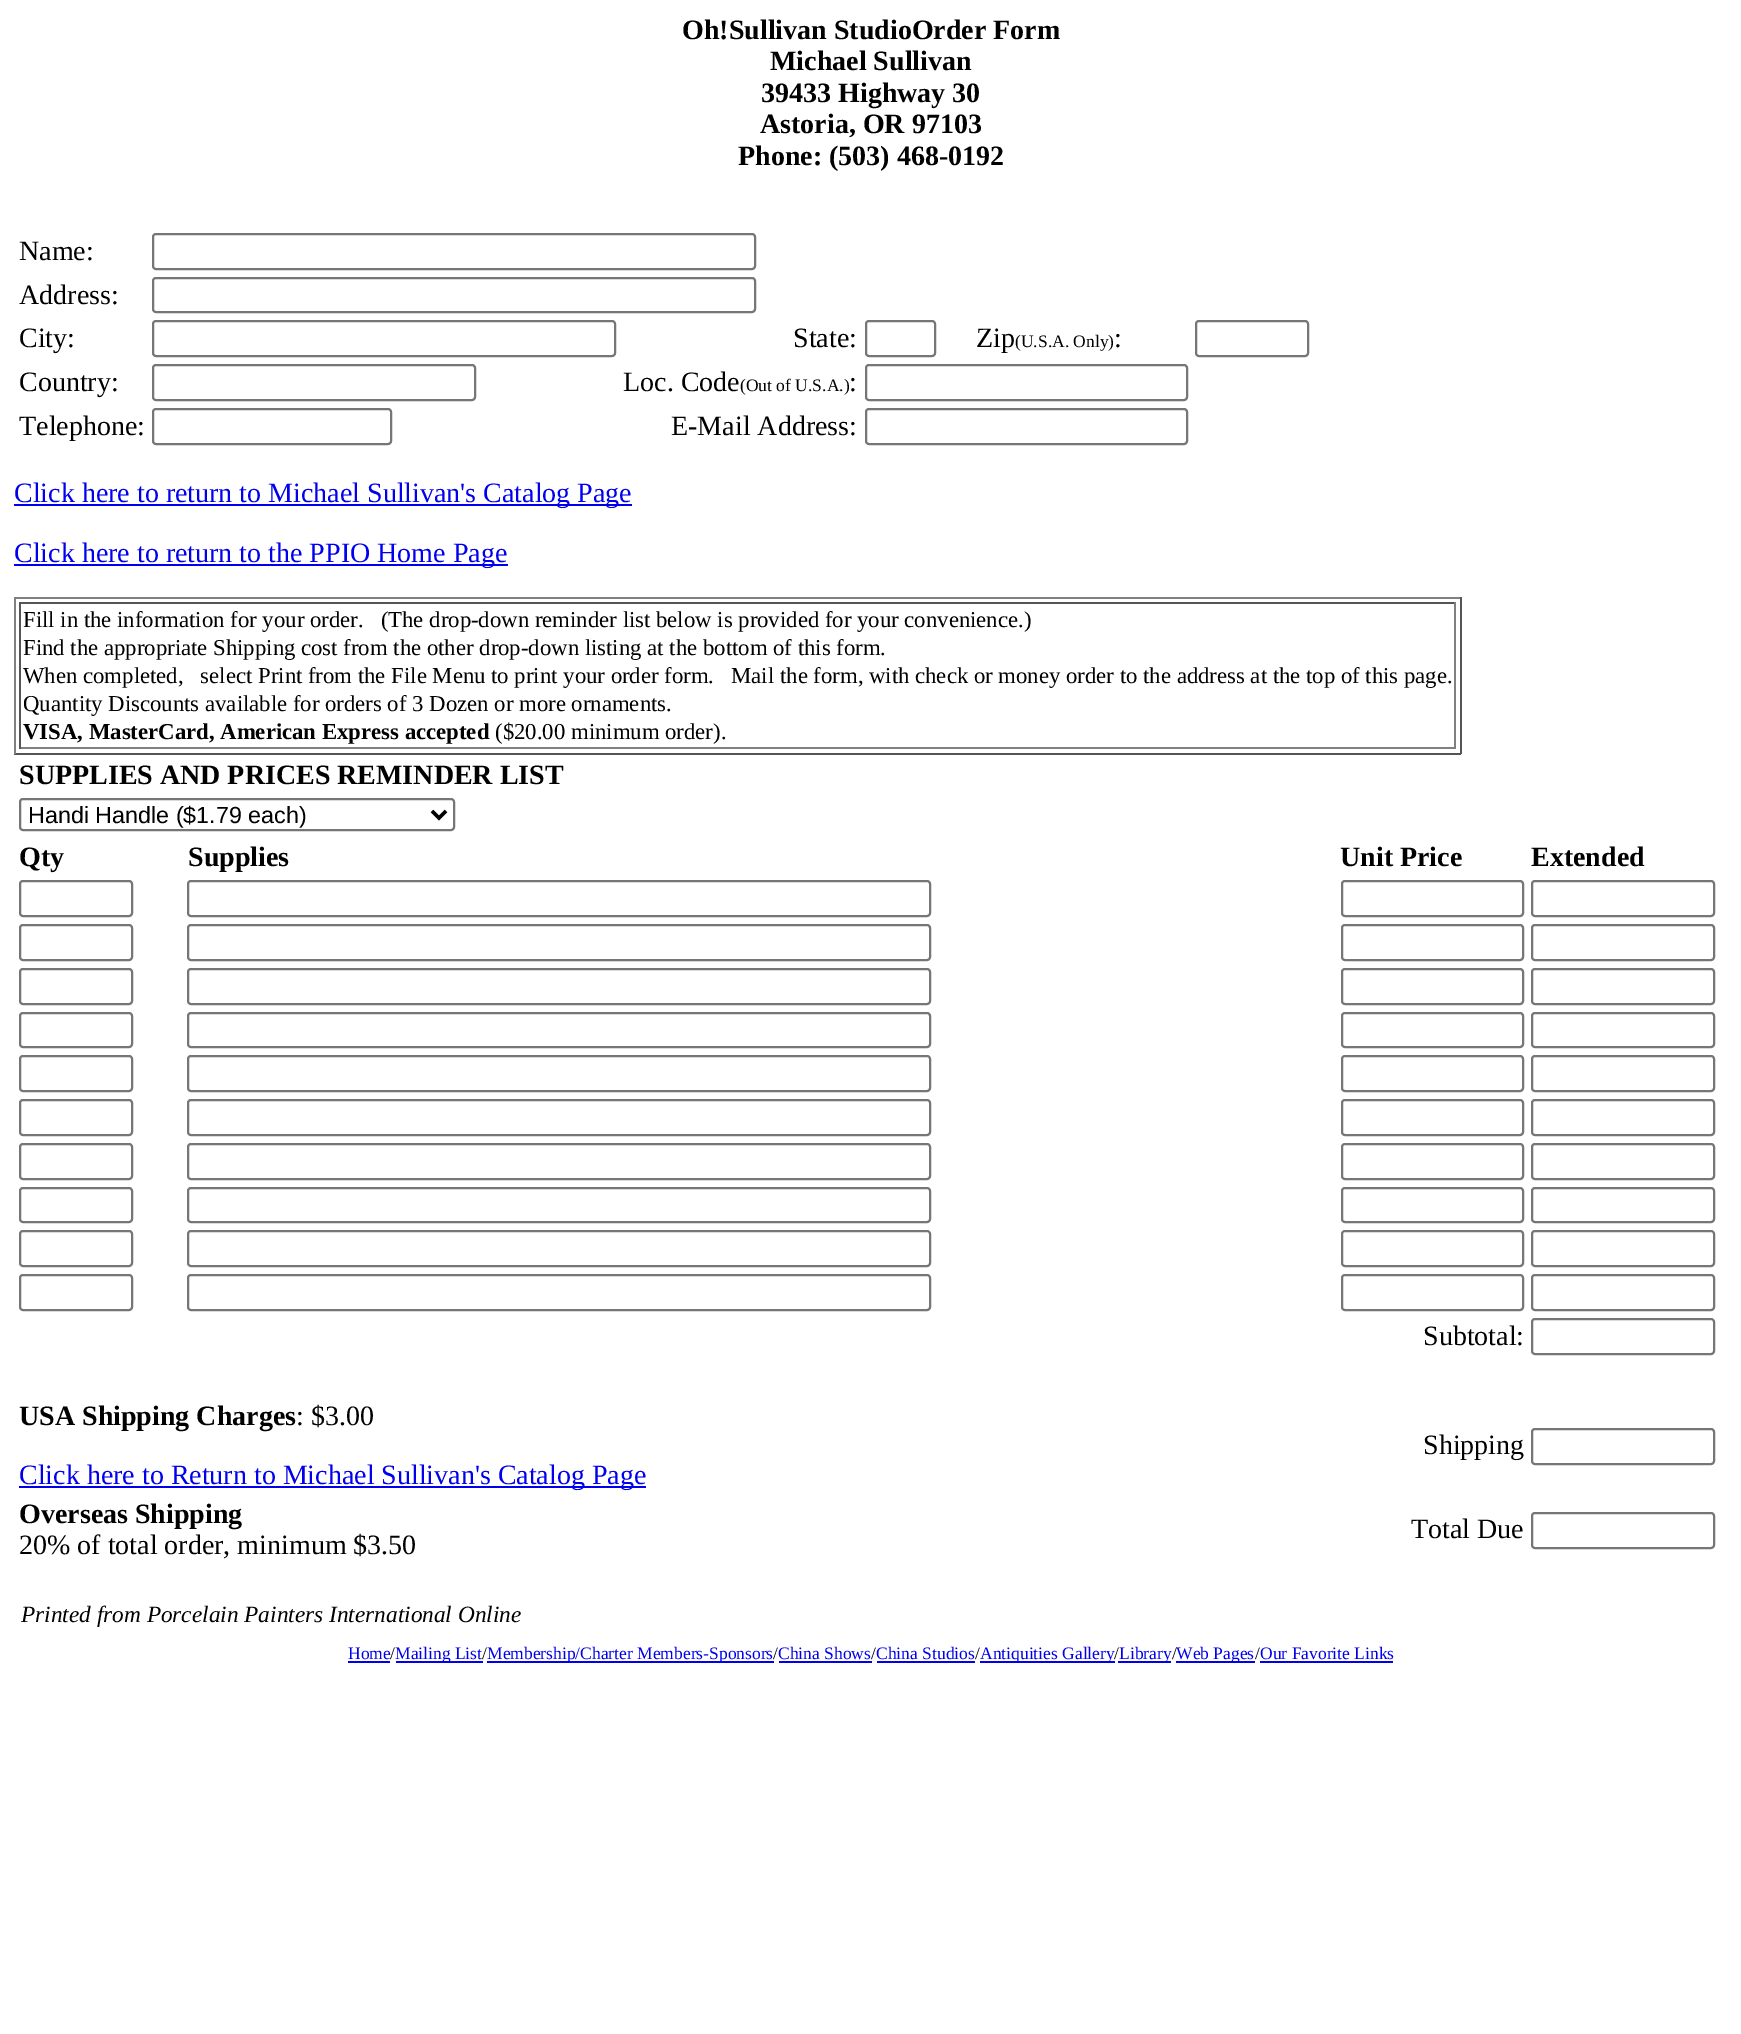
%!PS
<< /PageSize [1741 2034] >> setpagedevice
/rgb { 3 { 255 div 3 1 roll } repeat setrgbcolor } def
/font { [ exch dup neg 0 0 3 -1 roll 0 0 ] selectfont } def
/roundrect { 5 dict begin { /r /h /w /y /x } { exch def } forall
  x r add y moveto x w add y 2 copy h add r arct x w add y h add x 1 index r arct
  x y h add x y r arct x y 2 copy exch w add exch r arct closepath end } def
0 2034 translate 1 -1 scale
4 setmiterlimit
255 255 255 rgb
0 0 1741 2034 rectfill
118 118 118 rgb
2 setlinewidth
153 234 602 35 3 roundrect stroke
153 278 602 34 3 roundrect stroke
153 321 462 35 3 roundrect stroke
866 321 69 35 3 roundrect stroke
1196 321 112 35 3 roundrect stroke
153 365 322 35 3 roundrect stroke
866 365 321 35 3 roundrect stroke
153 409 238 35 3 roundrect stroke
866 409 321 35 3 roundrect stroke
[
  [14 504 618 2 0 0 238]
  [14 564 494 2 0 0 238]
  [14 597 1447 2 128 128 128]
  [1460 597 2 157 85 85 85]
  [14 753 1447 2 85 85 85]
  [14 597 2 157 128 128 128]
  [19 602 1437 2 85 85 85]
  [1454 602 2 147 128 128 128]
  [19 747 1437 2 128 128 128]
  [19 602 2 147 85 85 85]
] { aload pop rgb rectfill } forall
118 118 118 rgb
20 799 434 31 3 roundrect stroke
0 0 0 rgb
3.5 setlinewidth
432 811 moveto 439 818 lineto 446 811 lineto stroke
118 118 118 rgb
2 setlinewidth
20 881 112 35 3 roundrect stroke
188 881 742 35 3 roundrect stroke
1342 881 181 35 3 roundrect stroke
1532 881 182 35 3 roundrect stroke
20 925 112 35 3 roundrect stroke
188 925 742 35 3 roundrect stroke
1342 925 181 35 3 roundrect stroke
1532 925 182 35 3 roundrect stroke
20 969 112 35 3 roundrect stroke
188 969 742 35 3 roundrect stroke
1342 969 181 35 3 roundrect stroke
1532 969 182 35 3 roundrect stroke
20 1013 112 34 3 roundrect stroke
188 1013 742 34 3 roundrect stroke
1342 1013 181 34 3 roundrect stroke
1532 1013 182 34 3 roundrect stroke
20 1056 112 35 3 roundrect stroke
188 1056 742 35 3 roundrect stroke
1342 1056 181 35 3 roundrect stroke
1532 1056 182 35 3 roundrect stroke
20 1100 112 35 3 roundrect stroke
188 1100 742 35 3 roundrect stroke
1342 1100 181 35 3 roundrect stroke
1532 1100 182 35 3 roundrect stroke
20 1144 112 35 3 roundrect stroke
188 1144 742 35 3 roundrect stroke
1342 1144 181 35 3 roundrect stroke
1532 1144 182 35 3 roundrect stroke
20 1188 112 34 3 roundrect stroke
188 1188 742 34 3 roundrect stroke
1342 1188 181 34 3 roundrect stroke
1532 1188 182 34 3 roundrect stroke
20 1231 112 35 3 roundrect stroke
188 1231 742 35 3 roundrect stroke
1342 1231 181 35 3 roundrect stroke
1532 1231 182 35 3 roundrect stroke
20 1275 112 35 3 roundrect stroke
188 1275 742 35 3 roundrect stroke
1342 1275 181 35 3 roundrect stroke
1532 1275 182 35 3 roundrect stroke
1532 1319 182 35 3 roundrect stroke
0 0 238 rgb
19 1486 627 2 rectfill
118 118 118 rgb
1532 1429 182 35 3 roundrect stroke
1532 1513 182 35 3 roundrect stroke
[
  [348 1661 42 2 0 0 238]
  [396 1661 87 2 0 0 238]
  [487 1661 287 2 0 0 238]
  [779 1661 93 2 0 0 238]
  [877 1661 98 2 0 0 238]
  [980 1661 135 2 0 0 238]
  [1118 1661 53 2 0 0 238]
  [1176 1661 79 2 0 0 238]
  [1260 1661 133 2 0 0 238]
] { aload pop rgb rectfill } forall
/LiberationSerif-Bold 28 font
0 0 0 rgb
[
  [(Oh!Sullivan StudioOrder Form) 682 39]
  [(Michael Sullivan) 770 70]
  [(39433 Highway 30) 761 102]
  [(Astoria, OR 97103) 760 133]
  [(Phone: \(503\) 468-0192) 738 165]
] { aload pop moveto show } forall
/LiberationSerif-Regular 28 font
[
  [(Name:) 19 260]
  [(Address:) 19 304]
  [(City:) 19 347]
  [(State:) 793 347]
  [(Zip) 976 347]
] { aload pop moveto show } forall
/LiberationSerif-Regular 17.5 font
1015 347 moveto (\(U.S.A. Only\)) show
/LiberationSerif-Regular 28 font
[
  [(:) 1114 347]
  [(Country:) 19 391]
  [(Loc. Code) 623 391]
] { aload pop moveto show } forall
/LiberationSerif-Regular 17.5 font
740 391 moveto (\(Out of U.S.A.\)) show
/LiberationSerif-Regular 28 font
[
  [(:) 849 391]
  [(Telephone:) 19 435]
  [(E-Mail Address:) 671 435]
] { aload pop moveto show } forall
0 0 238 rgb
14 502 moveto (Click here to return to Michael Sullivan's Catalog Page) show
14 562 moveto (Click here to return to the PPIO Home Page) show
/LiberationSerif-Regular 22.75 font
0 0 0 rgb
[
  [(Fill in the information for your order.   \(The drop-down reminder list below is provided for your convenience.\)) 23 627]
  [(Find the appropriate Shipping cost from the other drop-down listing at the bottom of this form.) 23 655]
  [(When completed,   select Print from the File Menu to print your order form.   Mail the form, with check or money order to the address at the top of this page.) 23 683]
  [(Quantity Discounts available for orders of 3 Dozen or more ornaments.) 23 711]
] { aload pop moveto show } forall
/LiberationSerif-Bold 22.75 font
23 739 moveto (VISA, MasterCard, American Express accepted) show
/LiberationSerif-Regular 22.75 font
495 739 moveto (\($20.00 minimum order\).) show
/LiberationSerif-Bold 28 font
19 784 moveto (SUPPLIES AND PRICES REMINDER LIST) show
/LiberationSans-Regular 23.3 font
28 823 moveto (Handi Handle \($1.79 each\)) show
/LiberationSerif-Bold 28 font
[
  [(Qty) 19 866]
  [(Supplies) 188 866]
  [(Unit Price) 1340 866]
  [(Extended) 1531 866]
] { aload pop moveto show } forall
/LiberationSerif-Regular 28 font
1423 1345 moveto (Subtotal:) show
/LiberationSerif-Bold 28 font
19 1425 moveto (USA Shipping Charges) show
/LiberationSerif-Regular 28 font
296 1425 moveto (: $3.00) show
0 0 238 rgb
19 1484 moveto (Click here to Return to Michael Sullivan's Catalog Page) show
0 0 0 rgb
1423 1454 moveto (Shipping) show
/LiberationSerif-Bold 28 font
19 1523 moveto (Overseas Shipping) show
/LiberationSerif-Regular 28 font
19 1554 moveto (20% of total order, minimum $3.50) show
1411 1538 moveto (Total Due) show
/LiberationSerif-Italic 23.3 font
21 1622 moveto (Printed from Porcelain Painters International Online) show
/LiberationSerif-Regular 17.5 font
0 0 238 rgb
348 1659 moveto (Home) show
0 0 0 rgb
390 1659 moveto (/) show
0 0 238 rgb
395 1659 moveto (Mailing List) show
0 0 0 rgb
482 1659 moveto (/) show
0 0 238 rgb
487 1659 moveto (Membership/Charter Members-Sponsors) show
0 0 0 rgb
773 1659 moveto (/) show
0 0 238 rgb
778 1659 moveto (China Shows) show
0 0 0 rgb
871 1659 moveto (/) show
0 0 238 rgb
876 1659 moveto (China Studios) show
0 0 0 rgb
975 1659 moveto (/) show
0 0 238 rgb
980 1659 moveto (Antiquities Gallery) show
0 0 0 rgb
1114 1659 moveto (/) show
0 0 238 rgb
1119 1659 moveto (Library) show
0 0 0 rgb
1172 1659 moveto (/) show
0 0 238 rgb
1176 1659 moveto (Web Pages) show
0 0 0 rgb
1255 1659 moveto (/) show
0 0 238 rgb
1260 1659 moveto (Our Favorite Links) show
showpage
